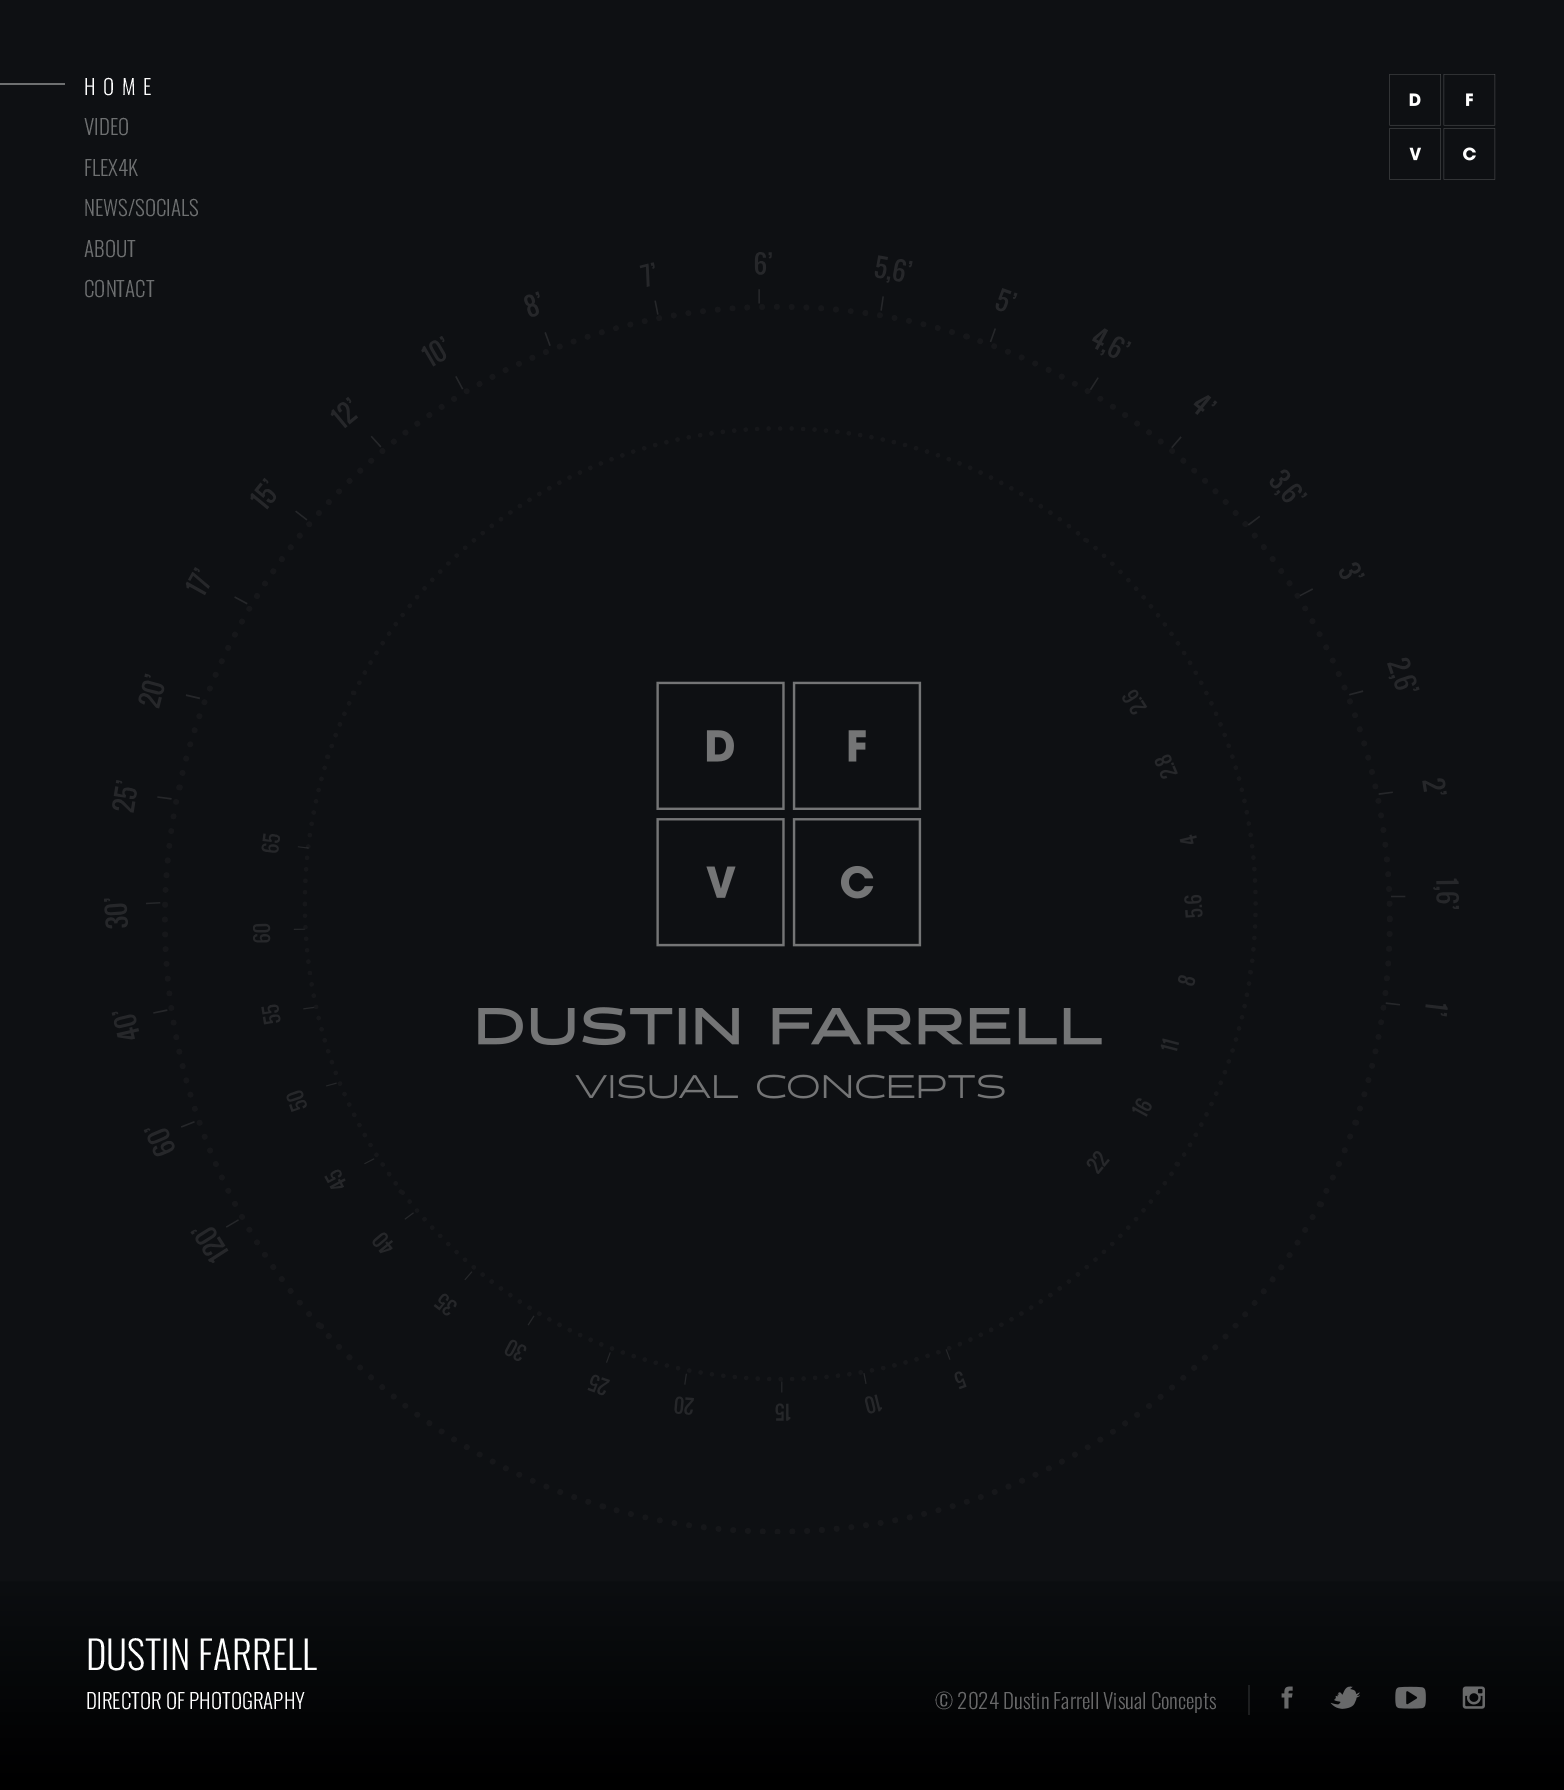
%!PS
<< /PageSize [1564 1790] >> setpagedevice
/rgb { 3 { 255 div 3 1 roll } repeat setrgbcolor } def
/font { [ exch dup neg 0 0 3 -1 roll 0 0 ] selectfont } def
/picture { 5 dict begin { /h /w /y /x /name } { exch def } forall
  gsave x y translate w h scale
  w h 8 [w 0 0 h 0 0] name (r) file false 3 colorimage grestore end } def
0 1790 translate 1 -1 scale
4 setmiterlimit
14 16 19 rgb
0 0 1564 1790 rectfill
110 112 113 rgb
0 83 65 2 rectfill
(img/1.rgb) 1389 74 107 106 picture
(img/2.rgb) 104 252 1355 1282 picture
(img/3.rgb) 253 426 1005 995 picture
(img/5.rgb) 1086 689 117 485 picture
(img/4.rgb) 478 681 624 418 picture
gsave 0 1581 moveto 1564 1581 lineto 1564 1790 lineto 0 1790 lineto closepath clip newpath
<< /ShadingType 2 /ColorSpace /DeviceRGB /Coords [782 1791 782 1551] /Extend [true true] /Function << /FunctionType 3 /Domain [0 1] /Functions [<< /FunctionType 2 /Domain [0 1] /C0 [0 0 0] /C1 [0.016 0.02 0.024] /N 1 >> << /FunctionType 2 /Domain [0 1] /C0 [0.016 0.02 0.024] /C1 [0.055 0.063 0.075] /N 1 >>] /Bounds [0.35] /Encode [0 1 0 1] >> >> shfill grestore
gsave 1248 1685 moveto 1250 1685 lineto 1250 1715 lineto 1248 1715 lineto closepath clip newpath
<< /ShadingType 2 /ColorSpace /DeviceRGB /Coords [782 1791 782 1551] /Extend [true true] /Function << /FunctionType 3 /Domain [0 1] /Functions [<< /FunctionType 2 /Domain [0 1] /C0 [0.102 0.102 0.102] /C1 [0.114 0.118 0.122] /N 1 >> << /FunctionType 2 /Domain [0 1] /C0 [0.114 0.118 0.122] /C1 [0.149 0.157 0.169] /N 1 >>] /Bounds [0.35] /Encode [0 1 0 1] >> >> shfill grestore
(img/6.rgb) 1281 1686 12 23 picture
(img/7.rgb) 1330 1686 30 23 picture
(img/8.rgb) 1395 1686 31 23 picture
(img/9.rgb) 1462 1686 23 23 picture
/Oswald-Light 21 font
255 255 255 rgb
84 95 moveto 7.5 0 (HOME) ashow
110 112 113 rgb
[
  [(VIDEO) 84 135]
  [(FLEX4K) 84 176]
  [(NEWS/SOCIALS) 84 216]
  [(ABOUT) 84 257]
  [(CONTACT) 84 297]
] { aload pop moveto show } forall
/Oswald-Light 39 font
255 255 255 rgb
86 1670 moveto (DUSTIN FARRELL) show
/Oswald-Light 21 font
86 1709 moveto (DIRECTOR OF PHOTOGRAPHY) show
105 105 106 rgb
935 1709 moveto (© 2024 Dustin Farrell Visual Concepts) show
showpage
